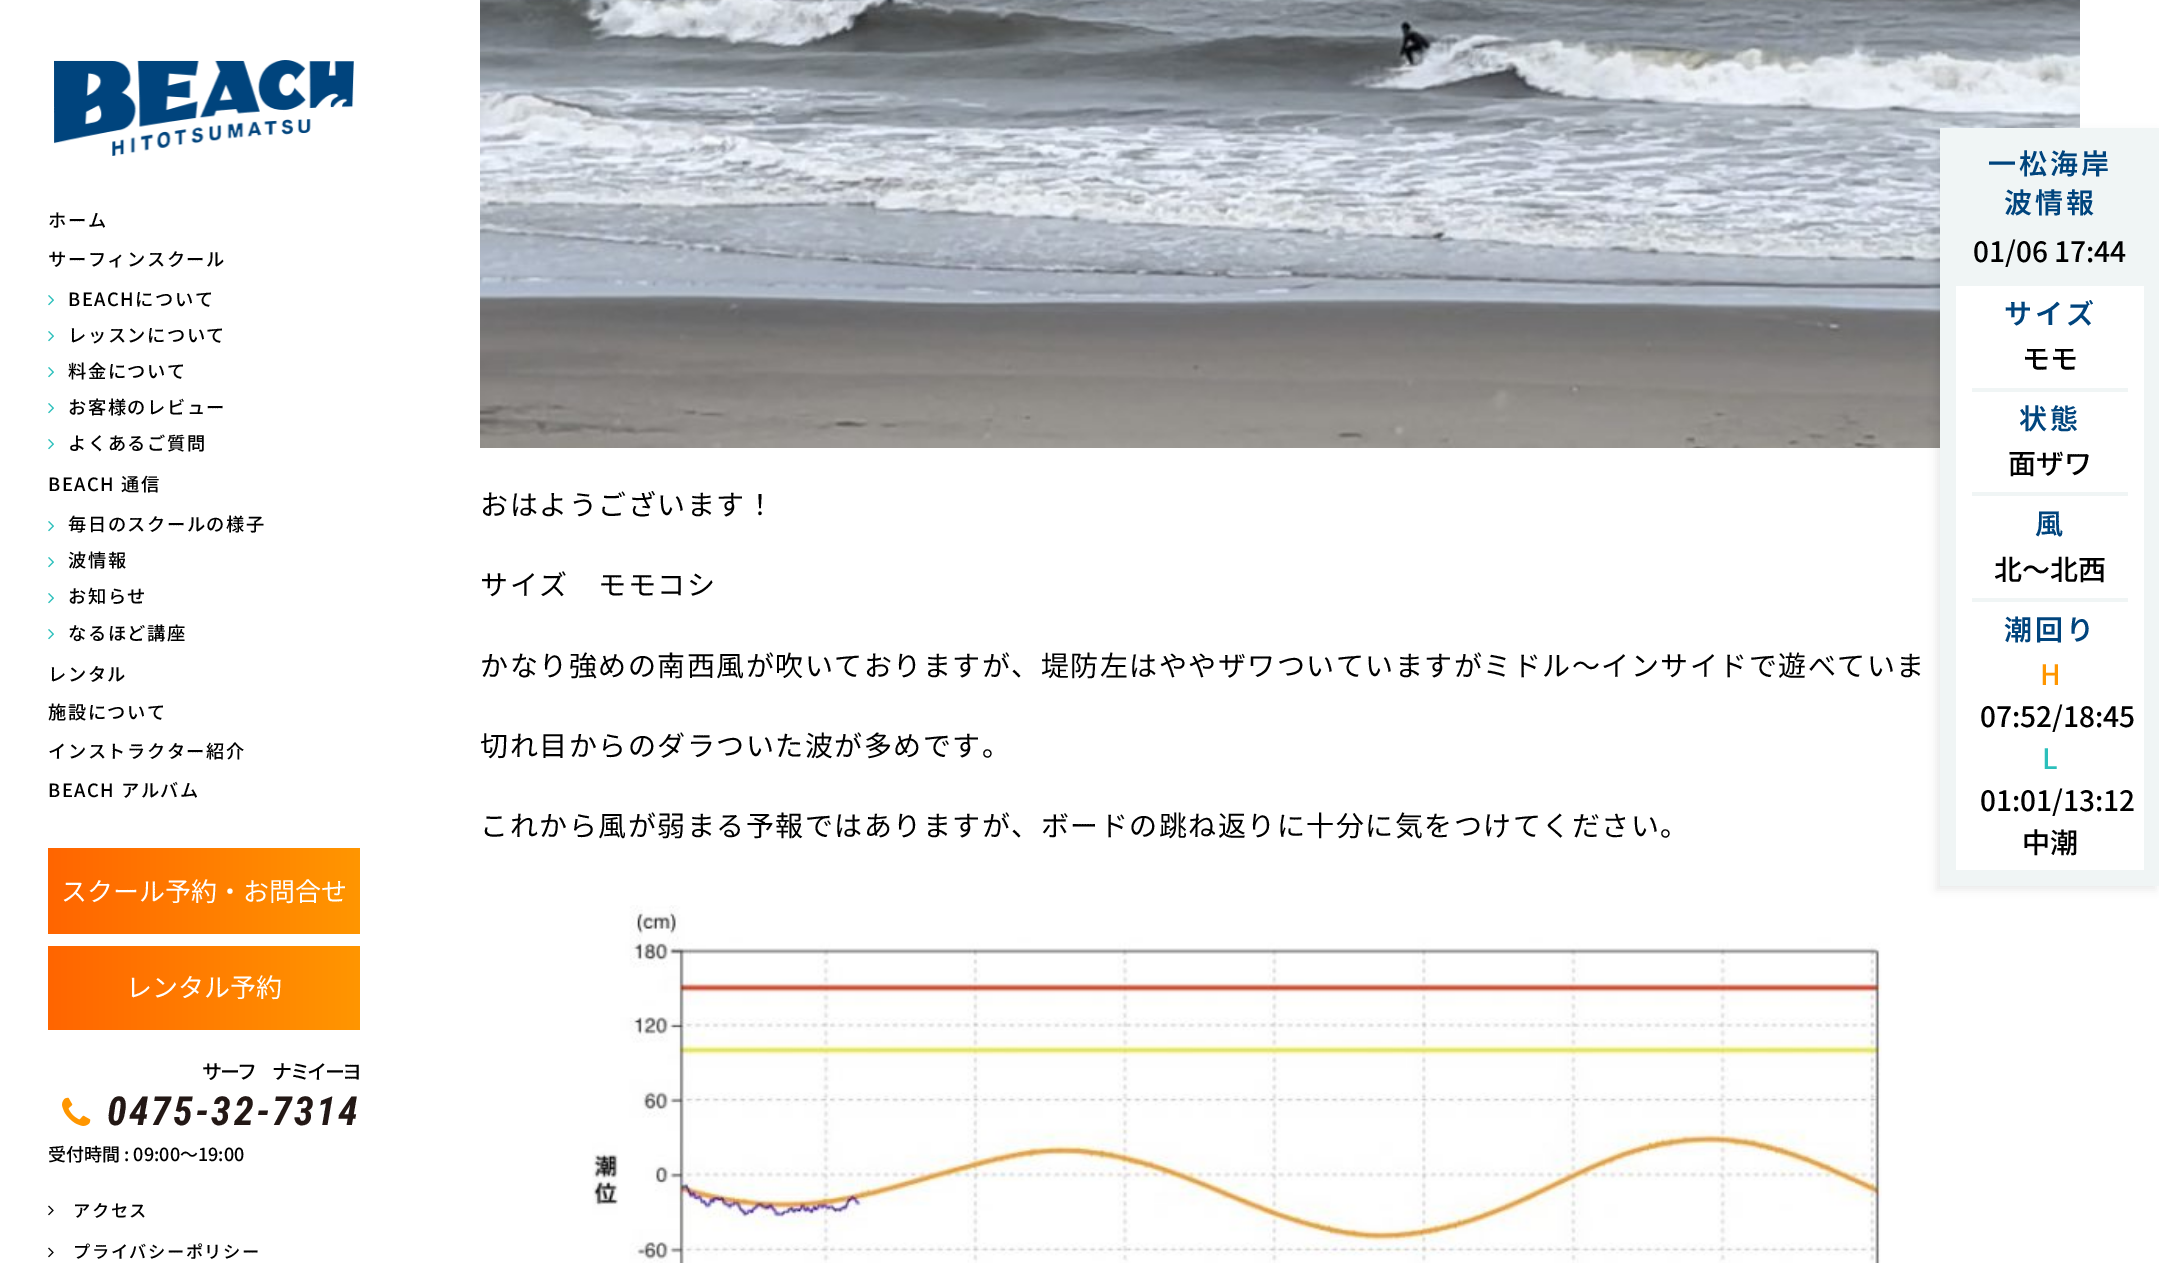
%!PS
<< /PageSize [2159 1263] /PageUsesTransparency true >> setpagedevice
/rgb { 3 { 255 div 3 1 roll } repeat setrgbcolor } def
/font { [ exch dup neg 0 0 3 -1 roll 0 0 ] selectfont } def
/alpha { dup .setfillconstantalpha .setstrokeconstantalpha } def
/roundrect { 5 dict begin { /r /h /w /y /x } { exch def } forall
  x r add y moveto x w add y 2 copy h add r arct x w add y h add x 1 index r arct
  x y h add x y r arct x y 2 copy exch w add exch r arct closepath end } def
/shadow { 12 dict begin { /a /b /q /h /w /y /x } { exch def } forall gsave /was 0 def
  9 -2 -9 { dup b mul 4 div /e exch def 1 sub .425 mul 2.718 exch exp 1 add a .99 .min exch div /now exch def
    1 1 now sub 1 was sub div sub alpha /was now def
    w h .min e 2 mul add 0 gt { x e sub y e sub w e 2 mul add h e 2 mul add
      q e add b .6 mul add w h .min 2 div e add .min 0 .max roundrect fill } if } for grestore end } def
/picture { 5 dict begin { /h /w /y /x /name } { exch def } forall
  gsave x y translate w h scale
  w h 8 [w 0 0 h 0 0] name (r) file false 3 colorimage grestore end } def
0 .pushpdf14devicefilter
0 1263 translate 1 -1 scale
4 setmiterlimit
255 255 255 rgb
0 0 2159 1263 rectfill
(img/1.rgb) 54 60 300 96 picture
(img/2.rgb) 48 295 6 11 picture
(img/2.rgb) 48 331 6 11 picture
(img/2.rgb) 48 367 6 11 picture
(img/2.rgb) 48 403 6 11 picture
(img/2.rgb) 48 439 6 11 picture
(img/2.rgb) 48 521 6 11 picture
(img/2.rgb) 48 557 6 11 picture
(img/2.rgb) 48 593 6 11 picture
(img/2.rgb) 48 629 6 11 picture
gsave 48 848 moveto 360 848 lineto 360 934 lineto 48 934 lineto closepath clip newpath
<< /ShadingType 2 /ColorSpace /DeviceRGB /Coords [48 891 672 891] /Extend [true true] /Function << /FunctionType 3 /Domain [0 1] /Functions [<< /FunctionType 2 /Domain [0 1] /C0 [1 0.396 0] /C1 [1 0.588 0] /N 1 >> << /FunctionType 2 /Domain [0 1] /C0 [1 0.588 0] /C1 [1 0.396 0] /N 1 >>] /Bounds [0.5] /Encode [0 1 0 1] >> >> shfill grestore
gsave 48 946 moveto 360 946 lineto 360 1030 lineto 48 1030 lineto closepath clip newpath
<< /ShadingType 2 /ColorSpace /DeviceRGB /Coords [48 988 672 988] /Extend [true true] /Function << /FunctionType 3 /Domain [0 1] /Functions [<< /FunctionType 2 /Domain [0 1] /C0 [1 0.396 0] /C1 [1 0.588 0] /N 1 >> << /FunctionType 2 /Domain [0 1] /C0 [1 0.588 0] /C1 [1 0.396 0] /N 1 >>] /Bounds [0.5] /Encode [0 1 0 1] >> >> shfill grestore
(img/3.rgb) 62 1097 29 29 picture
(img/4.rgb) 48 1205 6 11 picture
(img/4.rgb) 48 1247 6 11 picture
(img/5.rgb) 480 0 1600 448 picture
(img/6.rgb) 592 905 1290 358 picture
0 0 0 rgb
1936 132 220 758 0 4 0.07 shadow
[
  [1940 128 219 758 240 245 245]
  [1956 286 188 584 255 255 255]
  [1972 388 156 4 240 245 245]
  [1972 492 156 4 240 245 245]
  [1972 598 156 4 240 245 245]
] { aload pop rgb rectfill } forall
/NotoSansJP-Medium 18.25 font
0 0 0 rgb
48 227 moveto 1.5 0 (ホーム) ashow
48 266 moveto 1.5 0 (サーフィンスクール) ashow
68 306 moveto 1.5 0 (BEACHについて) ashow
68 342 moveto 1.5 0 (レッスンについて) ashow
68 378 moveto 1.5 0 (料金について) ashow
68 414 moveto 1.5 0 (お客様のレビュー) ashow
68 450 moveto 1.5 0 (よくあるご質問) ashow
48 491 moveto 1.5 0 (BEACH 通信) ashow
68 531 moveto 1.5 0 (毎日のスクールの様子) ashow
68 567 moveto 1.5 0 (波情報) ashow
68 603 moveto 1.5 0 (お知らせ) ashow
68 640 moveto 1.5 0 (なるほど講座) ashow
48 681 moveto 1.5 0 (レンタル) ashow
48 719 moveto 1.5 0 (施設について) ashow
48 758 moveto 1.5 0 (インストラクター紹介) ashow
48 797 moveto 1.5 0 (BEACH アルバム) ashow
/NotoSansJP-Regular 26 font
255 255 255 rgb
61 901 moveto (スクール予約・お問合せ) show
126 997 moveto (レンタル予約) show
/NotoSansJP-Medium 20 font
0 0 0 rgb
202 1079 moveto -2.5 0 (サーフ　ナミイーヨ) ashow
/RobotoCondensed-BoldItalic 40 font
35 24 21 rgb
107 1125 moveto 2.4 0 (0475-32-7314) ashow
/NotoSansJP-Medium 18 font
0 0 0 rgb
48 1161 moveto (受付時間 : 09:00〜19:00) show
/NotoSansJP-Medium 17.25 font
73 1217 moveto 1.5 0 (アクセス) ashow
73 1258 moveto 1.5 0 (プライバシーポリシー) ashow
/NotoSansJP-Regular 28 font
480 515 moveto 1.5 0 (おはようございます！) ashow
480 595 moveto 1.5 0 (サイズ　モモコシ) ashow
480 676 moveto 1.5 0 (かなり強めの南西風が吹いておりますが、堤防左はややザワついていますがミドル～インサイドで遊べていま) ashow
480 756 moveto 1.5 0 (切れ目からのダラついた波が多めです。) ashow
480 836 moveto 1.5 0 (これから風が弱まる予報ではありますが、ボードの跳ね返りに十分に気をつけてください。) ashow
/NotoSansJP-SemiBold 28 font
0 68 125 rgb
1988 174 moveto 3 0 (一松海岸) ashow
2004 213 moveto 3 0 (波情報) ashow
/NotoSansJP-Medium 28 font
0 0 0 rgb
1973 262 moveto (01/06 17:44) show
/NotoSansJP-SemiBold 28 font
0 68 125 rgb
2004 324 moveto 3 0 (サイズ) ashow
/NotoSansJP-Medium 28 font
0 0 0 rgb
2022 369 moveto (モモ) show
/NotoSansJP-SemiBold 28 font
0 68 125 rgb
2019 429 moveto 3 0 (状態) ashow
/NotoSansJP-Medium 28 font
0 0 0 rgb
2008 474 moveto (面ザワ) show
/NotoSansJP-SemiBold 28 font
0 68 125 rgb
2035 534 moveto 3 0 (風) ashow
/NotoSansJP-Medium 28 font
0 0 0 rgb
1994 580 moveto (北～北西) show
/NotoSansJP-SemiBold 28 font
0 68 125 rgb
2004 640 moveto 3 0 (潮回り) ashow
/NotoSansJP-Medium 28 font
255 150 0 rgb
2040 685 moveto (H) show
0 0 0 rgb
1980 727 moveto (07:52/18:45) show
43 191 187 rgb
2042 769 moveto (L) show
0 0 0 rgb
1980 811 moveto (01:01/13:12) show
2022 853 moveto (中潮) show
.poppdf14devicefilter showpage
